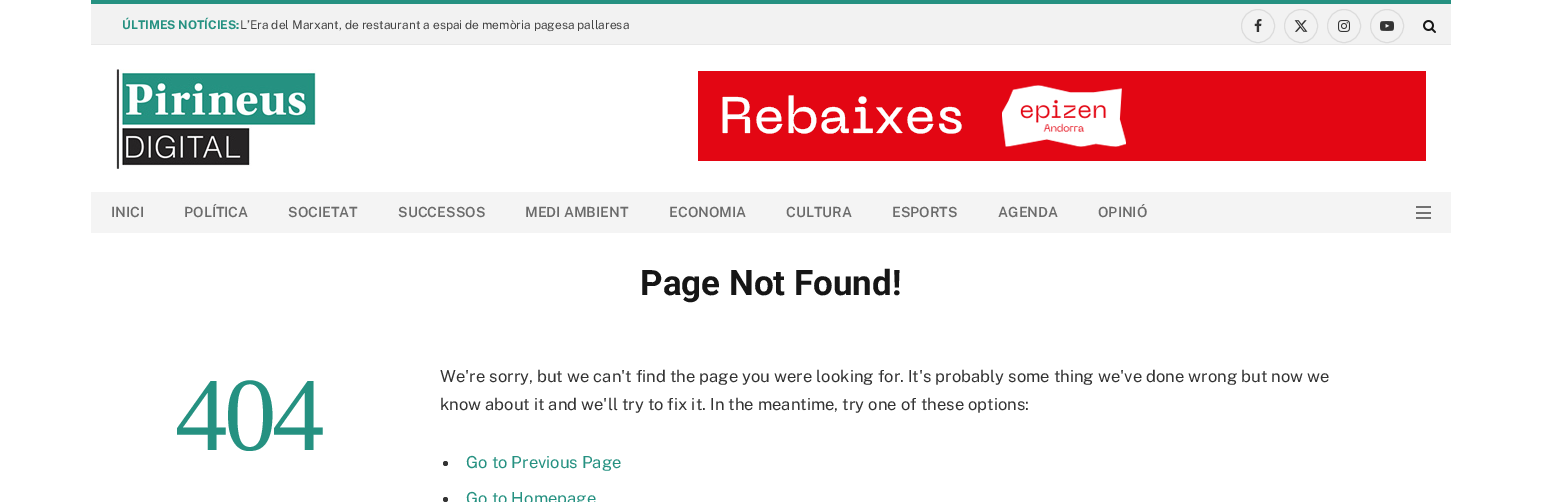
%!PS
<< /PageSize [1542 502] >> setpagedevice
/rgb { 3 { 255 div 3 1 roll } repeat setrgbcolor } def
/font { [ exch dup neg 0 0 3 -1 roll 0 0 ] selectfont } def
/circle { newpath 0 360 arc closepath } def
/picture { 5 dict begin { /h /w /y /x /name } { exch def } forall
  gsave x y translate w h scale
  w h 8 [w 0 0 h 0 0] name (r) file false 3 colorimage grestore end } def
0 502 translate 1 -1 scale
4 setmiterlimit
255 255 255 rgb
0 0 1542 502 rectfill
[
  [91 4 1360 40 242 242 242]
  [91 0 1360 4 37 145 129]
  [91 44 1360 1 232 232 232]
] { aload pop rgb rectfill } forall
220 220 220 rgb
1258 26 16.5 circle stroke
(img/1.rgb) 1254 19 8 13 picture
1301 26 16.5 circle stroke
(img/2.rgb) 1294 20 14 12 picture
1344 26 16.5 circle stroke
(img/3.rgb) 1338 20 12 12 picture
1387 26 16.5 circle stroke
(img/4.rgb) 1380 21 14 10 picture
(img/5.rgb) 1423 20 13 13 picture
(img/6.rgb) 116 69 200 100 picture
(img/7.rgb) 698 71 728 90 picture
[
  [91 192 1360 41 244 244 244]
  [1416 217 15 2 114 114 114]
  [1416 206 15 2 114 114 114]
  [1416 212 15 2 114 114 114]
] { aload pop rgb rectfill } forall
51 51 51 rgb
445.5 463.5 2.5 circle fill
445.5 499.5 2.5 circle fill
/PublicSans-Bold 12 font
37 145 129 rgb
122 29 moveto (ÚLTIMES NOTÍCIES:) show
/PublicSans-Regular 12 font
68 68 68 rgb
240 29 moveto (L’Era del Marxant, de restaurant a espai de memòria pagesa pallaresa) show
/PublicSans-SemiBold 14 font
107 107 107 rgb
[
  [(INICI) 111 217]
  [(POLÍTICA) 184 217]
  [(SOCIETAT) 288 217]
  [(SUCCESSOS) 398 217]
  [(MEDI AMBIENT) 525 217]
  [(ECONOMIA) 669 217]
  [(CULTURA) 786 217]
  [(ESPORTS) 892 217]
  [(AGENDA) 998 217]
  [(OPINIÓ) 1098 217]
] { aload pop moveto show } forall
/Roboto-Bold 35 font
22 22 22 rgb
640 295 moveto (Page Not Found!) show
/LiberationSerif-Regular 105 font
37 145 129 rgb
175 450 moveto -4 0 (404) ashow
/PublicSans-Regular 16.6 font
51 51 51 rgb
440 382 moveto (We're sorry, but we can't find the page you were looking for. It's probably some thing we've done wrong but now we) show
440 410 moveto (know about it and we'll try to fix it. In the meantime, try one of these options:) show
37 145 129 rgb
466 468 moveto (Go to Previous Page) show
466 504 moveto (Go to Homepage) show
showpage
